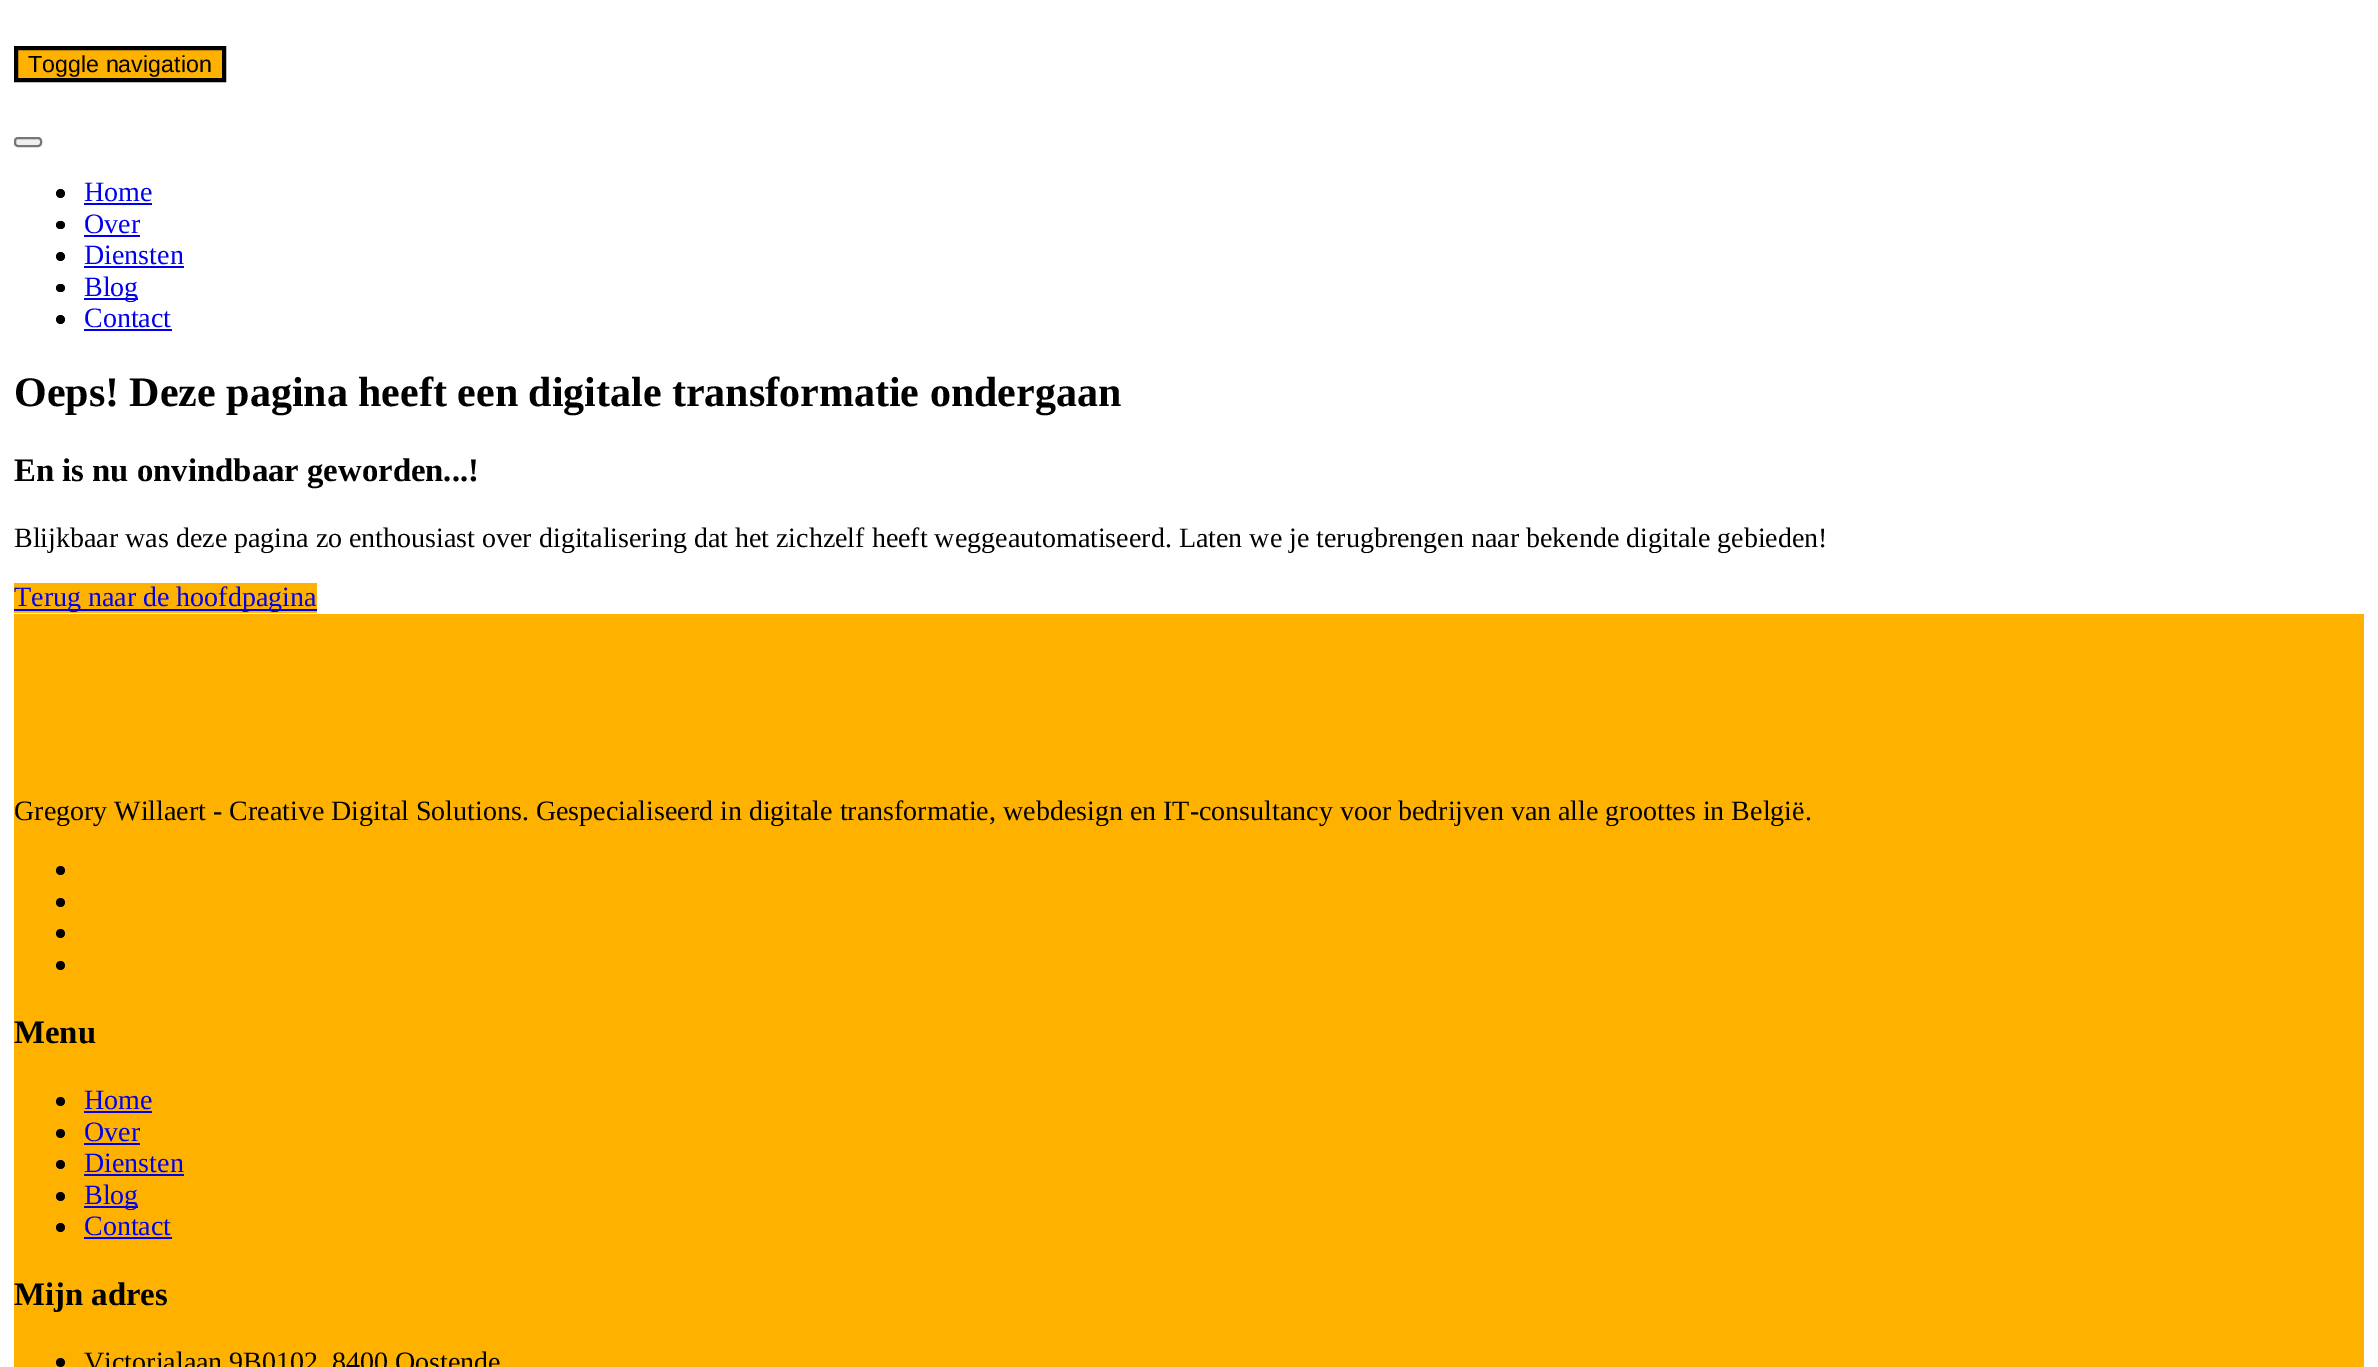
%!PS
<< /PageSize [2378 1367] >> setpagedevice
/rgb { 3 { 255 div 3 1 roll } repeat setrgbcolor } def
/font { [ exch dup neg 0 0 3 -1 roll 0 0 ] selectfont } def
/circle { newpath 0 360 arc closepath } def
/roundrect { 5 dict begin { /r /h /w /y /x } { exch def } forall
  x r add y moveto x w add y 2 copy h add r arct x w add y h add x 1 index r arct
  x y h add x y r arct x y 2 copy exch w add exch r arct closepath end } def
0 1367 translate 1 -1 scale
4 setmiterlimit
255 255 255 rgb
0 0 2378 1367 rectfill
255 177 0 rgb
16 48 moveto 224 48 lineto 224 80 lineto 16 80 lineto closepath gsave fill grestore
0 0 0 rgb
4 setlinewidth
stroke
239 239 239 rgb
15 138 26 8 3 roundrect gsave fill grestore
118 118 118 rgb
2 setlinewidth
stroke
0 0 0 rgb
60.5 193.5 4.5 circle fill
0 0 238 rgb
84 203 68 2 rectfill
0 0 0 rgb
56 221 9 8 4 roundrect fill
0 0 238 rgb
84 235 56 2 rectfill
0 0 0 rgb
60.5 256.5 4.5 circle fill
0 0 238 rgb
84 266 100 2 rectfill
0 0 0 rgb
56 284 9 8 4 roundrect fill
0 0 238 rgb
84 298 54 2 rectfill
0 0 0 rgb
60.5 319.5 4.5 circle fill
[
  [84 329 88 2 0 0 238]
  [14 583 303 30 255 177 0]
  [14 609 303 2 0 0 238]
  [14 614 2350 753 255 177 0]
] { aload pop rgb rectfill } forall
0 0 0 rgb
60.5 870.5 4.5 circle fill
60.5 902.5 4.5 circle fill
60.5 933.5 4.5 circle fill
60.5 965.5 4.5 circle fill
60.5 1101.5 4.5 circle fill
0 0 238 rgb
84 1111 68 2 rectfill
0 0 0 rgb
60.5 1133.5 4.5 circle fill
0 0 238 rgb
84 1143 56 2 rectfill
0 0 0 rgb
60.5 1164.5 4.5 circle fill
0 0 238 rgb
84 1174 100 2 rectfill
0 0 0 rgb
60.5 1196.5 4.5 circle fill
0 0 238 rgb
84 1206 54 2 rectfill
0 0 0 rgb
60.5 1227.5 4.5 circle fill
0 0 238 rgb
84 1237 88 2 rectfill
0 0 0 rgb
60.5 1362.5 4.5 circle fill
/LiberationSans-Regular 23.25 font
28 72 moveto (Toggle navigation) show
/LiberationSerif-Regular 28 font
0 0 238 rgb
[
  [(Home) 84 201]
  [(Over) 84 233]
  [(Diensten) 84 264]
  [(Blog) 84 296]
  [(Contact) 84 327]
] { aload pop moveto show } forall
/LiberationSerif-Bold 42 font
0 0 0 rgb
14 406 moveto (Oeps! Deze pagina heeft een digitale transformatie ondergaan) show
/LiberationSerif-Bold 32.75 font
14 481 moveto (En is nu onvindbaar geworden...!) show
/LiberationSerif-Regular 28 font
14 547 moveto (Blijkbaar was deze pagina zo enthousiast over digitalisering dat het zichzelf heeft weggeautomatiseerd. Laten we je terugbrengen naar bekende digitale gebieden!) show
0 0 238 rgb
14 606 moveto (Terug naar de hoofdpagina) show
0 0 0 rgb
14 820 moveto (Gregory Willaert - Creative Digital Solutions. Gespecialiseerd in digitale transformatie, webdesign en IT-consultancy voor bedrijven van alle groottes in België.) show
/LiberationSerif-Bold 32.75 font
14 1043 moveto (Menu) show
/LiberationSerif-Regular 28 font
0 0 238 rgb
[
  [(Home) 84 1109]
  [(Over) 84 1141]
  [(Diensten) 84 1172]
  [(Blog) 84 1204]
  [(Contact) 84 1235]
] { aload pop moveto show } forall
/LiberationSerif-Bold 32.75 font
0 0 0 rgb
14 1305 moveto (Mijn adres) show
/LiberationSerif-Regular 28 font
84 1371 moveto (Victorialaan 9B0102, 8400 Oostende) show
showpage
